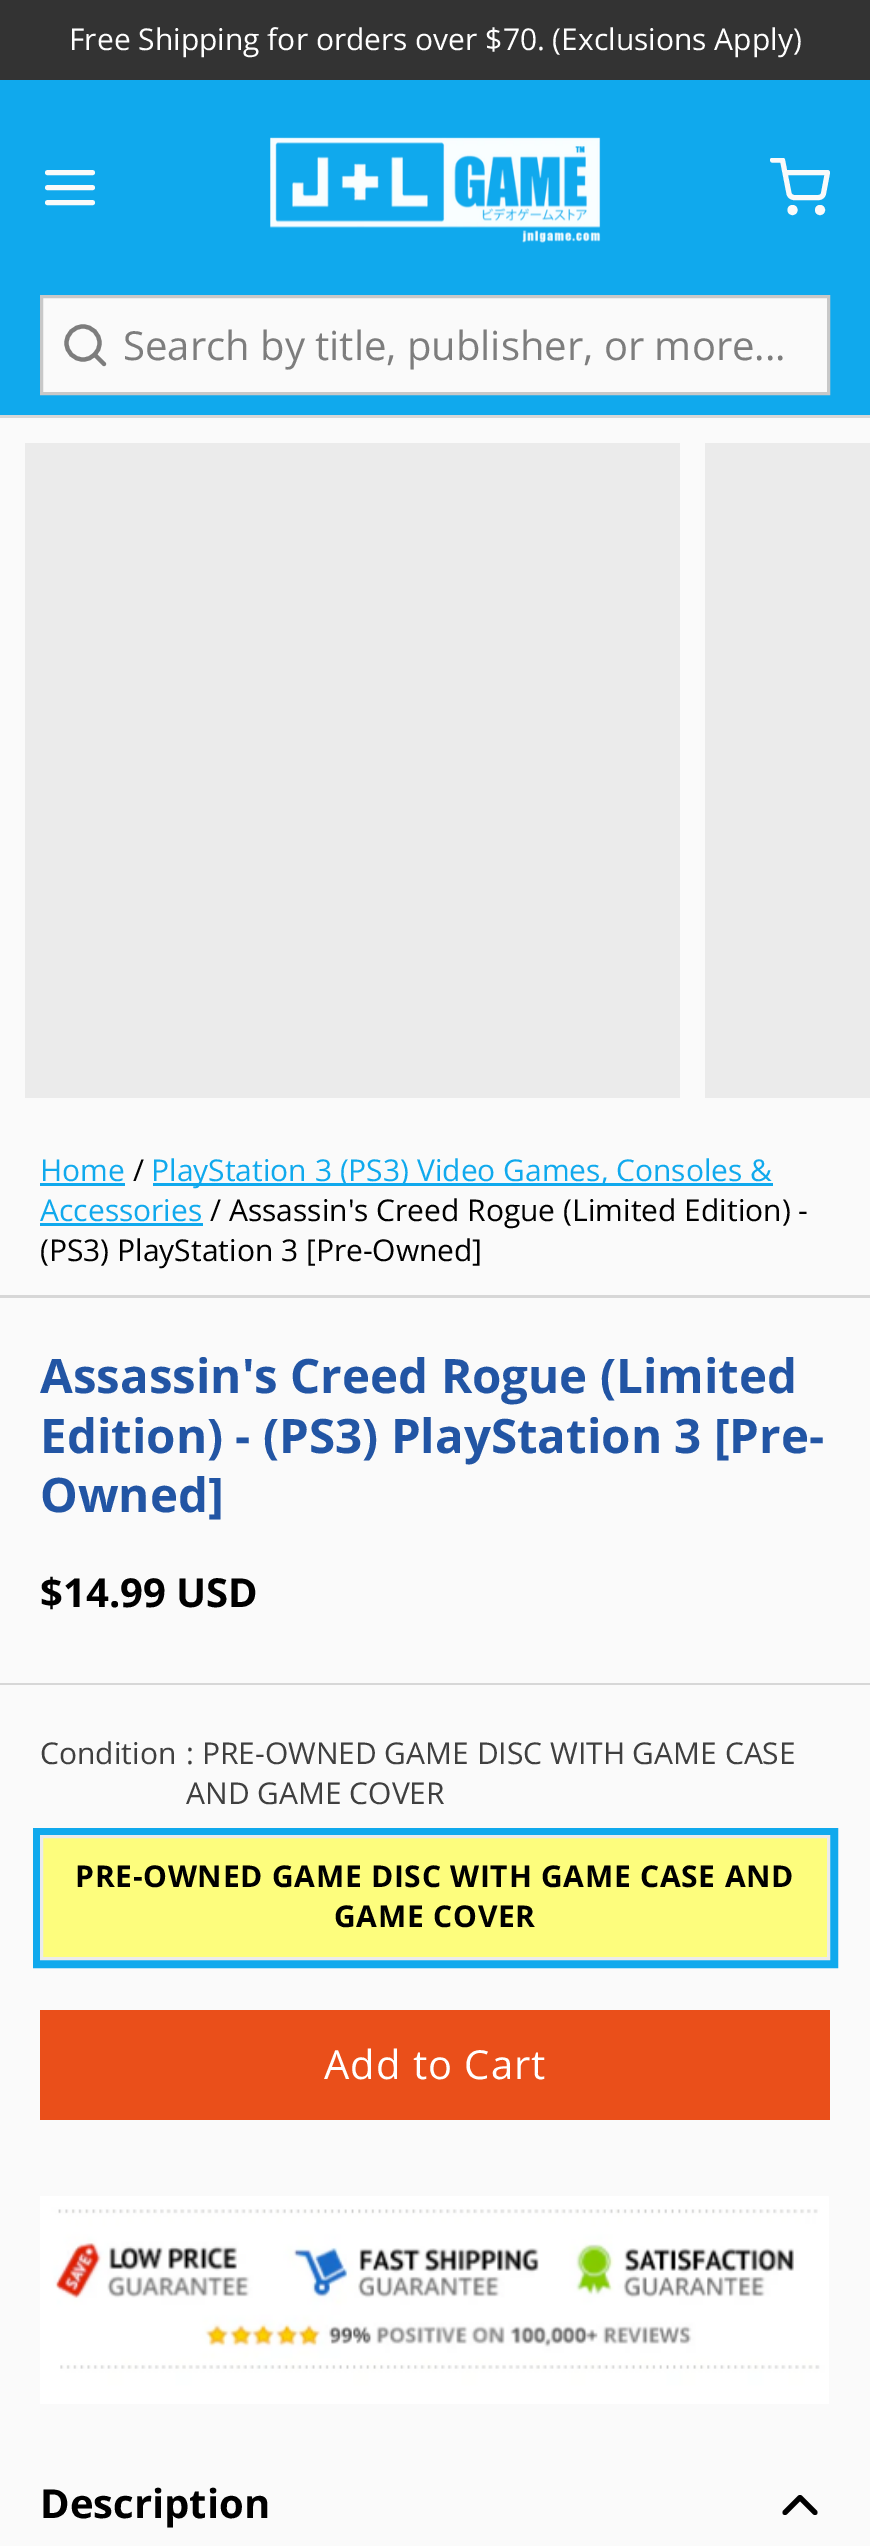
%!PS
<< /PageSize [870 2546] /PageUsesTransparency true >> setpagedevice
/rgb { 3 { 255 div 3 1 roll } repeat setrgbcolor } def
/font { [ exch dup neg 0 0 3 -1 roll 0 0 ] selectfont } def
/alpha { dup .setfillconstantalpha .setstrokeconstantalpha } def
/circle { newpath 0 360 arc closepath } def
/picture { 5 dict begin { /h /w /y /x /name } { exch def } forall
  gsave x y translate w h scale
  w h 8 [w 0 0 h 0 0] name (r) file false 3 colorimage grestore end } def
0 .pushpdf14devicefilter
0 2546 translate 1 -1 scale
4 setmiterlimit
250 250 250 rgb
0 0 870 2546 rectfill
[
  [0 0 870 80 51 51 51]
  [0 80 870 335 16 169 237]
  [0 415 870 3 215 215 215]
] { aload pop rgb rectfill } forall
250 250 250 rgb
5 setlinewidth
1 setlinecap
1 setlinejoin
47.5 187.5 moveto 92.5 187.5 lineto 47.5 172.5 moveto 92.5 172.5 lineto 47.5 202.5 moveto 92.5 202.5 lineto stroke
(img/1.rgb) 270 137 331 106 picture
0 setlinecap
0 setlinejoin
792.5 210 2.5 circle stroke
820 210 2.5 circle stroke
gsave
770 158 60 60 rectclip
1 setlinecap
1 setlinejoin
772.5 160 moveto 782.5 160 lineto 789 193.5 lineto 789.5 196 792 197.5 794 197.5 curveto 818.5 197.5 lineto 821 197.5 823 196 823.5 193.5 curveto 827.5 172.5 lineto 785 172.5 lineto stroke
grestore
41.5 296.5 moveto 828.5 296.5 lineto 828.5 393.5 lineto 41.5 393.5 lineto closepath gsave fill grestore
200 200 200 rgb
3 setlinewidth
stroke
125 125 125 rgb
4.2 setlinewidth
83 343 16.5 circle stroke
1 setlinecap
1 setlinejoin
104 364 moveto 94.5 354.5 lineto stroke
[
  [25 443 655 655 235 235 235]
  [705 443 165 655 235 235 235]
  [0 1295 870 3 215 215 215]
  [40 1183 85 3 16 169 237]
  [153 1183 620 3 16 169 237]
  [40 1223 163 3 16 169 237]
  [0 1683 870 2 215 215 215]
] { aload pop rgb rectfill } forall
16 169 237 rgb
8 setlinewidth
0 setlinecap
0 setlinejoin
37 1832 797 132 rectstroke
0.5 alpha
255 255 0 rgb
41.5 1836.5 moveto 828.5 1836.5 lineto 828.5 1958.5 lineto 41.5 1958.5 lineto closepath fill
1 alpha
235 235 235 rgb
3 setlinewidth
41.5 1836.5 moveto 828.5 1836.5 lineto 828.5 1958.5 lineto 41.5 1958.5 lineto closepath stroke
234 79 26 rgb
40 2010 790 110 rectfill
(img/2.rgb) 40 2196 789 208 picture
0 0 0 rgb
5 setlinewidth
1 setlinecap
1 setlinejoin
815 2512.5 moveto 800 2497.5 lineto 785 2512.5 lineto stroke
/OpenSans-Regular 30 font
255 255 255 rgb
69 50 moveto (Free Shipping for orders over $70. \(Exclusions Apply\)) show
/OpenSans-Regular 40 font
125 125 125 rgb
123 360 moveto (Search by title, publisher, or more...) show
/OpenSans-Regular 30 font
16 169 237 rgb
40 1181 moveto (Home) show
0 0 0 rgb
133 1181 moveto (/) show
16 169 237 rgb
151 1181 moveto (PlayStation 3 \(PS3\) Video Games, Consoles &) show
40 1221 moveto (Accessories) show
0 0 0 rgb
210 1221 moveto (/ Assassin's Creed Rogue \(Limited Edition\) -) show
40 1261 moveto (\(PS3\) PlayStation 3 [Pre-Owned]) show
/OpenSans-Bold 47.5 font
34 85 164 rgb
[
  [(Assassin's Creed Rogue \(Limited) 40 1393]
  [(Edition\) - \(PS3\) PlayStation 3 [Pre-) 40 1453]
  [(Owned]) 40 1512]
] { aload pop moveto show } forall
/OpenSans-Bold 40 font
0 0 0 rgb
40 1607 moveto ($14.99 USD) show
/OpenSans-Regular 30 font
63 63 63 rgb
[
  [(Condition) 40 1764]
  [(: PRE-OWNED GAME DISC WITH GAME CASE) 186 1764]
  [(AND GAME COVER) 186 1804]
] { aload pop moveto show } forall
/OpenSans-Bold 30 font
0 0 0 rgb
75 1887 moveto 0.75 0 (PRE-OWNED GAME DISC WITH GAME CASE AND) ashow
334 1927 moveto 0.75 0 (GAME COVER) ashow
/OpenSans-Regular 40 font
255 255 255 rgb
324 2079 moveto 1 0 (Add to Cart) ashow
/OpenSans-Bold 40 font
0 0 0 rgb
40 2518 moveto (Description) show
.poppdf14devicefilter showpage
